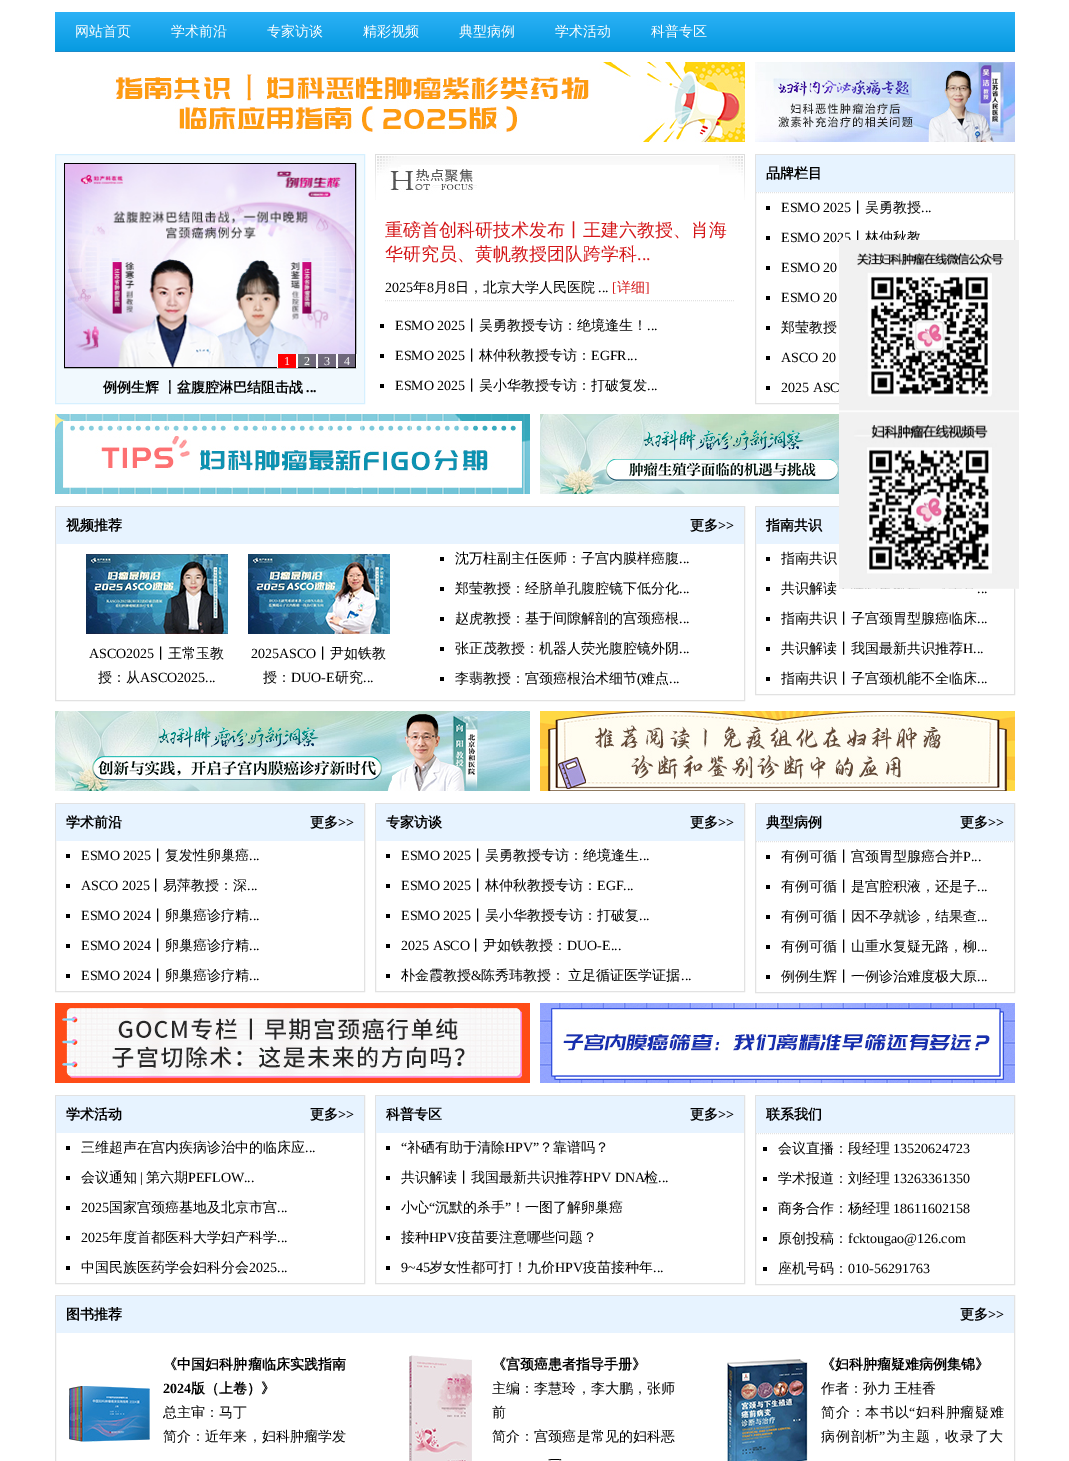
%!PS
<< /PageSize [1069 1461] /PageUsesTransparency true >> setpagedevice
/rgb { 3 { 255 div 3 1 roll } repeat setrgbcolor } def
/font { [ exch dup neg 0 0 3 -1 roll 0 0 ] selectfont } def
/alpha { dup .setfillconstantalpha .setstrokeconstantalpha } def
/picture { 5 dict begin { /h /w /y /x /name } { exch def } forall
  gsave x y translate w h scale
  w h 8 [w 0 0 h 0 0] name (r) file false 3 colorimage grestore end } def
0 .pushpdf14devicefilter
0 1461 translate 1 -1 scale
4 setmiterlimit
255 255 255 rgb
0 0 1069 1461 rectfill
gsave 55 12 moveto 1015 12 lineto 1015 51 lineto 55 51 lineto closepath clip newpath
<< /ShadingType 2 /ColorSpace /DeviceRGB /Coords [535 12 535 51] /Extend [true true] /Function << /FunctionType 2 /Domain [0 1] /C0 [0.173 0.694 0.965] /C1 [0.027 0.608 0.882] /N 1 >> >> shfill grestore
28 138 201 rgb
55 51 960 1 rectfill
(img/1.rgb) 112 62 633 80 picture
(img/2.rgb) 755 62 260 80 picture
241 249 254 rgb
55.5 154.5 moveto 364.5 154.5 lineto 364.5 403.5 lineto 55.5 403.5 lineto closepath gsave fill grestore
214 240 255 rgb
stroke
0 0 0 rgb
64.5 163.5 291 204 rectstroke
(img/3.rgb) 65 164 290 203 picture
[
  [278 354 18 14 255 0 0]
  [296 354 2 14 255 255 255]
  [277 354 1 14 255 255 255]
] { aload pop rgb rectfill } forall
0.5 alpha
[
  [298 354 18 13 0 0 0]
] { aload pop rgb rectfill } forall
1 alpha
[
  [316 354 2 14 255 255 255]
] { aload pop rgb rectfill } forall
0.5 alpha
[
  [318 354 18 13 0 0 0]
] { aload pop rgb rectfill } forall
1 alpha
[
  [336 354 2 14 255 255 255]
] { aload pop rgb rectfill } forall
0.5 alpha
[
  [338 354 17 13 0 0 0]
] { aload pop rgb rectfill } forall
1 alpha
[
  [356 354 1 14 255 255 255]
] { aload pop rgb rectfill } forall
(img/4.rgb) 375 154 370 46 picture
226 226 226 rgb
[1 1] 0 setdash
385 300.5 moveto 735 300.5 lineto stroke
[
  [380 324 4 4 0 0 0]
  [380 354 4 4 0 0 0]
  [380 384 4 4 0 0 0]
] { aload pop rgb rectfill } forall
226 226 226 rgb
[] 0 setdash
755.5 154.5 259 249 rectstroke
231 243 255 rgb
756 155 258 37 rectfill
226 226 226 rgb
[1 1] 0 setdash
756 192.5 moveto 1014 192.5 lineto stroke
[
  [766 206 4 4 0 0 0]
  [766 236 4 4 0 0 0]
  [766 266 4 4 0 0 0]
  [766 296 4 4 0 0 0]
  [766 326 4 4 0 0 0]
  [766 356 4 4 0 0 0]
  [766 386 4 4 0 0 0]
] { aload pop rgb rectfill } forall
(img/5.rgb) 55 414 475 80 picture
(img/6.rgb) 540 414 299 80 picture
226 226 226 rgb
[] 0 setdash
55.5 506.5 689 194 rectstroke
231 243 255 rgb
56 507 688 37 rectfill
(img/8.rgb) 86 554 142 80 picture
(img/9.rgb) 248 554 142 80 picture
[
  [440 557 4 4 0 0 0]
  [440 587 4 4 0 0 0]
  [440 617 4 4 0 0 0]
  [440 647 4 4 0 0 0]
  [440 677 4 4 0 0 0]
] { aload pop rgb rectfill } forall
226 226 226 rgb
755.5 506.5 259 188 rectstroke
[
  [756 507 83 37 231 243 255]
  [766 557 4 4 0 0 0]
  [766 587 4 4 0 0 0]
  [766 617 4 4 0 0 0]
  [766 647 4 4 0 0 0]
  [766 677 4 4 0 0 0]
] { aload pop rgb rectfill } forall
(img/10.rgb) 55 711 475 80 picture
(img/11.rgb) 540 711 475 80 picture
226 226 226 rgb
55.5 803.5 309 188 rectstroke
[
  [56 804 308 37 231 243 255]
  [66 854 4 4 0 0 0]
  [66 884 4 4 0 0 0]
  [66 914 4 4 0 0 0]
  [66 944 4 4 0 0 0]
  [66 974 4 4 0 0 0]
] { aload pop rgb rectfill } forall
226 226 226 rgb
375.5 803.5 369 188 rectstroke
[
  [376 804 368 37 231 243 255]
  [386 854 4 4 0 0 0]
  [386 884 4 4 0 0 0]
  [386 914 4 4 0 0 0]
  [386 944 4 4 0 0 0]
  [386 974 4 4 0 0 0]
] { aload pop rgb rectfill } forall
226 226 226 rgb
755.5 803.5 259 189 rectstroke
231 243 255 rgb
756 804 258 37 rectfill
226 226 226 rgb
[1 1] 0 setdash
756 841.5 moveto 1014 841.5 lineto stroke
[
  [766 855 4 4 0 0 0]
  [766 885 4 4 0 0 0]
  [766 915 4 4 0 0 0]
  [766 945 4 4 0 0 0]
  [766 975 4 4 0 0 0]
] { aload pop rgb rectfill } forall
(img/12.rgb) 55 1003 475 80 picture
(img/13.rgb) 540 1003 475 80 picture
226 226 226 rgb
[] 0 setdash
55.5 1095.5 309 188 rectstroke
[
  [56 1096 308 37 231 243 255]
  [66 1146 4 4 0 0 0]
  [66 1176 4 4 0 0 0]
  [66 1206 4 4 0 0 0]
  [66 1236 4 4 0 0 0]
  [66 1266 4 4 0 0 0]
] { aload pop rgb rectfill } forall
226 226 226 rgb
375.5 1095.5 369 188 rectstroke
[
  [376 1096 368 37 231 243 255]
  [386 1146 4 4 0 0 0]
  [386 1176 4 4 0 0 0]
  [386 1206 4 4 0 0 0]
  [386 1236 4 4 0 0 0]
  [386 1266 4 4 0 0 0]
] { aload pop rgb rectfill } forall
226 226 226 rgb
755.5 1095.5 259 189 rectstroke
231 243 255 rgb
756 1096 258 37 rectfill
226 226 226 rgb
[1 1] 0 setdash
756 1133.5 moveto 1014 1133.5 lineto stroke
[
  [763 1147 4 4 0 0 0]
  [763 1177 4 4 0 0 0]
  [763 1207 4 4 0 0 0]
  [763 1237 4 4 0 0 0]
  [763 1267 4 4 0 0 0]
] { aload pop rgb rectfill } forall
226 226 226 rgb
[] 0 setdash
55.5 1295.5 959 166 rectstroke
231 243 255 rgb
56 1296 958 37 rectfill
(img/14.rgb) 69 1386 81 56 picture
(img/15.rgb) 409 1355 63 106 picture
(img/16.rgb) 724 1359 84 102 picture
/WenQuanYiZenHei-Medium 14 font
255 255 255 rgb
[
  [(网站首页) 75 36]
  [(学术前沿) 171 36]
  [(专家访谈) 267 36]
  [(精彩视频) 363 36]
  [(典型病例) 459 36]
  [(学术活动) 555 36]
  [(科普专区) 651 36]
] { aload pop moveto show } forall
/LiberationSerif-Regular 12 font
[
  [(1) 284 365]
  [(2) 304 365]
  [(3) 324 365]
  [(4) 344 365]
] { aload pop moveto show } forall
/WenQuanYiZenHei-Bold 14 font
0 0 0 rgb
103 392 moveto (例例生辉 丨盆腹腔淋巴结阻击战) show
/LiberationSerif-Bold 14 font
306 392 moveto (...) show
/WenQuanYiZenHei-Medium 18 font
212 22 24 rgb
385 236 moveto (重磅首创科研技术发布丨王建六教授、肖海) show
385 260 moveto (华研究员、黄帆教授团队跨学科) show
/LiberationSerif-Regular 18 font
637 260 moveto (...) show
/LiberationSerif-Regular 14 font
0 0 0 rgb
385 292 moveto (2025) show
/WenQuanYiZenHei-Medium 14 font
413 292 moveto (年) show
/LiberationSerif-Regular 14 font
427 292 moveto (8) show
/WenQuanYiZenHei-Medium 14 font
434 292 moveto (月) show
/LiberationSerif-Regular 14 font
448 292 moveto (8) show
/WenQuanYiZenHei-Medium 14 font
455 292 moveto (日，北京大学人民医院) show
/LiberationSerif-Regular 14 font
598 292 moveto (...) show
212 22 24 rgb
612 292 moveto ([) show
/WenQuanYiZenHei-Medium 14 font
617 292 moveto (详细) show
/LiberationSerif-Regular 14 font
645 292 moveto (]) show
0 0 0 rgb
395 330 moveto (ESMO 2025) show
/WenQuanYiZenHei-Medium 14 font
465 330 moveto (丨吴勇教授专访：绝境逢生！) show
/LiberationSerif-Regular 14 font
647 330 moveto (...) show
395 360 moveto (ESMO 2025) show
/WenQuanYiZenHei-Medium 14 font
465 360 moveto (丨林仲秋教授专访：) show
/LiberationSerif-Regular 14 font
591 360 moveto (EGFR...) show
395 390 moveto (ESMO 2025) show
/WenQuanYiZenHei-Medium 14 font
465 390 moveto (丨吴小华教授专访：打破复发) show
/LiberationSerif-Regular 14 font
647 390 moveto (...) show
/WenQuanYiZenHei-Bold 14 font
766 178 moveto (品牌栏目) show
/LiberationSerif-Regular 14 font
781 212 moveto (ESMO 2025) show
/WenQuanYiZenHei-Medium 14 font
851 212 moveto (丨吴勇教授) show
/LiberationSerif-Regular 14 font
921 212 moveto (...) show
781 242 moveto (ESMO 2025) show
/WenQuanYiZenHei-Medium 14 font
851 242 moveto (丨林仲秋教) show
/LiberationSerif-Regular 14 font
781 272 moveto (ESMO 20) show
781 302 moveto (ESMO 20) show
/WenQuanYiZenHei-Medium 14 font
781 332 moveto (郑莹教授) show
/LiberationSerif-Regular 14 font
781 362 moveto (ASCO 20) show
781 392 moveto (2025 ASC) show
(img/7.rgb) 839 240 180 349 picture
/WenQuanYiZenHei-Bold 14 font
66 530 moveto (视频推荐) show
690 530 moveto (更多) show
/LiberationSerif-Bold 14 font
718 530 moveto (>>) show
/LiberationSerif-Regular 14 font
89 658 moveto (ASCO2025) show
/WenQuanYiZenHei-Medium 14 font
154 658 moveto (丨王常玉教) show
98 682 moveto (授：从) show
/LiberationSerif-Regular 14 font
140 682 moveto (ASCO2025...) show
251 658 moveto (2025ASCO) show
/WenQuanYiZenHei-Medium 14 font
316 658 moveto (丨尹如铁教) show
263 682 moveto (授：) show
/LiberationSerif-Regular 14 font
291 682 moveto (DUO-E) show
/WenQuanYiZenHei-Medium 14 font
335 682 moveto (研究) show
/LiberationSerif-Regular 14 font
363 682 moveto (...) show
/WenQuanYiZenHei-Medium 14 font
455 563 moveto (沈万柱副主任医师：子宫内膜样癌腹) show
/LiberationSerif-Regular 14 font
679 563 moveto (...) show
/WenQuanYiZenHei-Medium 14 font
455 593 moveto (郑莹教授：经脐单孔腹腔镜下低分化) show
/LiberationSerif-Regular 14 font
679 593 moveto (...) show
/WenQuanYiZenHei-Medium 14 font
455 623 moveto (赵虎教授：基于间隙解剖的宫颈癌根) show
/LiberationSerif-Regular 14 font
679 623 moveto (...) show
/WenQuanYiZenHei-Medium 14 font
455 653 moveto (张正茂教授：机器人荧光腹腔镜外阴) show
/LiberationSerif-Regular 14 font
679 653 moveto (...) show
/WenQuanYiZenHei-Medium 14 font
455 683 moveto (李翡教授：宫颈癌根治术细节) show
/LiberationSerif-Regular 14 font
637 683 moveto (\() show
/WenQuanYiZenHei-Medium 14 font
641 683 moveto (难点) show
/LiberationSerif-Regular 14 font
669 683 moveto (...) show
/WenQuanYiZenHei-Bold 14 font
766 530 moveto (指南共识) show
/WenQuanYiZenHei-Medium 14 font
781 563 moveto (指南共识) show
781 593 moveto (共识解读) show
/LiberationSerif-Regular 14 font
977 593 moveto (...) show
/WenQuanYiZenHei-Medium 14 font
781 623 moveto (指南共识丨子宫颈胃型腺癌临床) show
/LiberationSerif-Regular 14 font
977 623 moveto (...) show
/WenQuanYiZenHei-Medium 14 font
781 653 moveto (共识解读丨我国最新共识推荐) show
/LiberationSerif-Regular 14 font
963 653 moveto (H...) show
/WenQuanYiZenHei-Medium 14 font
781 683 moveto (指南共识丨子宫颈机能不全临床) show
/LiberationSerif-Regular 14 font
977 683 moveto (...) show
/WenQuanYiZenHei-Bold 14 font
66 827 moveto (学术前沿) show
310 827 moveto (更多) show
/LiberationSerif-Bold 14 font
338 827 moveto (>>) show
/LiberationSerif-Regular 14 font
81 860 moveto (ESMO 2025) show
/WenQuanYiZenHei-Medium 14 font
151 860 moveto (丨复发性卵巢癌) show
/LiberationSerif-Regular 14 font
249 860 moveto (...) show
81 890 moveto (ASCO 2025) show
/WenQuanYiZenHei-Medium 14 font
149 890 moveto (丨易萍教授：深) show
/LiberationSerif-Regular 14 font
247 890 moveto (...) show
81 920 moveto (ESMO 2024) show
/WenQuanYiZenHei-Medium 14 font
151 920 moveto (丨卵巢癌诊疗精) show
/LiberationSerif-Regular 14 font
249 920 moveto (...) show
81 950 moveto (ESMO 2024) show
/WenQuanYiZenHei-Medium 14 font
151 950 moveto (丨卵巢癌诊疗精) show
/LiberationSerif-Regular 14 font
249 950 moveto (...) show
81 980 moveto (ESMO 2024) show
/WenQuanYiZenHei-Medium 14 font
151 980 moveto (丨卵巢癌诊疗精) show
/LiberationSerif-Regular 14 font
249 980 moveto (...) show
/WenQuanYiZenHei-Bold 14 font
386 827 moveto (专家访谈) show
690 827 moveto (更多) show
/LiberationSerif-Bold 14 font
718 827 moveto (>>) show
/LiberationSerif-Regular 14 font
401 860 moveto (ESMO 2025) show
/WenQuanYiZenHei-Medium 14 font
471 860 moveto (丨吴勇教授专访：绝境逢生) show
/LiberationSerif-Regular 14 font
639 860 moveto (...) show
401 890 moveto (ESMO 2025) show
/WenQuanYiZenHei-Medium 14 font
471 890 moveto (丨林仲秋教授专访：) show
/LiberationSerif-Regular 14 font
597 890 moveto (EGF...) show
401 920 moveto (ESMO 2025) show
/WenQuanYiZenHei-Medium 14 font
471 920 moveto (丨吴小华教授专访：打破复) show
/LiberationSerif-Regular 14 font
639 920 moveto (...) show
401 950 moveto (2025 ASCO) show
/WenQuanYiZenHei-Medium 14 font
469 950 moveto (丨尹如铁教授：) show
/LiberationSerif-Regular 14 font
567 950 moveto (DUO-E...) show
/WenQuanYiZenHei-Medium 14 font
401 980 moveto (朴金霞教授) show
/LiberationSerif-Regular 14 font
471 980 moveto (&) show
/WenQuanYiZenHei-Medium 14 font
481 980 moveto -1 0 32 (陈秀玮教授： 立足循证医学证据) widthshow
/LiberationSerif-Regular 14 font
681 980 moveto (...) show
/WenQuanYiZenHei-Bold 14 font
766 827 moveto (典型病例) show
960 827 moveto (更多) show
/LiberationSerif-Bold 14 font
988 827 moveto (>>) show
/WenQuanYiZenHei-Medium 14 font
781 861 moveto (有例可循丨宫颈胃型腺癌合并) show
/LiberationSerif-Regular 14 font
963 861 moveto (P...) show
/WenQuanYiZenHei-Medium 14 font
781 891 moveto (有例可循丨是宫腔积液，还是子) show
/LiberationSerif-Regular 14 font
977 891 moveto (...) show
/WenQuanYiZenHei-Medium 14 font
781 921 moveto (有例可循丨因不孕就诊，结果查) show
/LiberationSerif-Regular 14 font
977 921 moveto (...) show
/WenQuanYiZenHei-Medium 14 font
781 951 moveto (有例可循丨山重水复疑无路，柳) show
/LiberationSerif-Regular 14 font
977 951 moveto (...) show
/WenQuanYiZenHei-Medium 14 font
781 981 moveto (例例生辉丨一例诊治难度极大原) show
/LiberationSerif-Regular 14 font
977 981 moveto (...) show
/WenQuanYiZenHei-Bold 14 font
66 1119 moveto (学术活动) show
310 1119 moveto (更多) show
/LiberationSerif-Bold 14 font
338 1119 moveto (>>) show
/WenQuanYiZenHei-Medium 14 font
81 1152 moveto (三维超声在宫内疾病诊治中的临床应) show
/LiberationSerif-Regular 14 font
305 1152 moveto (...) show
/WenQuanYiZenHei-Medium 14 font
81 1182 moveto (会议通知) show
/LiberationSerif-Regular 14 font
140 1182 moveto (|) show
/WenQuanYiZenHei-Medium 14 font
146 1182 moveto (第六期) show
/LiberationSerif-Regular 14 font
188 1182 moveto (PEFLOW...) show
81 1212 moveto (2025) show
/WenQuanYiZenHei-Medium 14 font
109 1212 moveto (国家宫颈癌基地及北京市宫) show
/LiberationSerif-Regular 14 font
277 1212 moveto (...) show
81 1242 moveto (2025) show
/WenQuanYiZenHei-Medium 14 font
109 1242 moveto (年度首都医科大学妇产科学) show
/LiberationSerif-Regular 14 font
277 1242 moveto (...) show
/WenQuanYiZenHei-Medium 14 font
81 1272 moveto (中国民族医药学会妇科分会) show
/LiberationSerif-Regular 14 font
249 1272 moveto (2025...) show
/WenQuanYiZenHei-Bold 14 font
386 1119 moveto (科普专区) show
690 1119 moveto (更多) show
/LiberationSerif-Bold 14 font
718 1119 moveto (>>) show
/LiberationSerif-Regular 14 font
401 1152 moveto (“) show
/WenQuanYiZenHei-Medium 14 font
407 1152 moveto (补硒有助于清除) show
/LiberationSerif-Regular 14 font
505 1152 moveto (HPV”) show
/WenQuanYiZenHei-Medium 14 font
539 1152 moveto (？靠谱吗？) show
401 1182 moveto (共识解读丨我国最新共识推荐) show
/LiberationSerif-Regular 14 font
583 1182 moveto (HPV DNA) show
/WenQuanYiZenHei-Medium 14 font
644 1182 moveto (检) show
/LiberationSerif-Regular 14 font
658 1182 moveto (...) show
/WenQuanYiZenHei-Medium 14 font
401 1212 moveto (小心) show
/LiberationSerif-Regular 14 font
429 1212 moveto (“) show
/WenQuanYiZenHei-Medium 14 font
435 1212 moveto (沉默的杀手) show
/LiberationSerif-Regular 14 font
505 1212 moveto (”) show
/WenQuanYiZenHei-Medium 14 font
511 1212 moveto (！一图了解卵巢癌) show
401 1242 moveto (接种) show
/LiberationSerif-Regular 14 font
429 1242 moveto (HPV) show
/WenQuanYiZenHei-Medium 14 font
457 1242 moveto (疫苗要注意哪些问题？) show
/LiberationSerif-Regular 14 font
401 1272 moveto (9~45) show
/WenQuanYiZenHei-Medium 14 font
429 1272 moveto (岁女性都可打！九价) show
/LiberationSerif-Regular 14 font
555 1272 moveto (HPV) show
/WenQuanYiZenHei-Medium 14 font
583 1272 moveto (疫苗接种年) show
/LiberationSerif-Regular 14 font
653 1272 moveto (...) show
/WenQuanYiZenHei-Bold 14 font
766 1119 moveto (联系我们) show
/WenQuanYiZenHei-Medium 14 font
778 1153 moveto (会议直播：段经理) show
/LiberationSerif-Regular 14 font
893 1153 moveto (13520624723) show
/WenQuanYiZenHei-Medium 14 font
778 1183 moveto (学术报道：刘经理) show
/LiberationSerif-Regular 14 font
893 1183 moveto (13263361350) show
/WenQuanYiZenHei-Medium 14 font
778 1213 moveto (商务合作：杨经理) show
/LiberationSerif-Regular 14 font
893 1213 moveto (18611602158) show
/WenQuanYiZenHei-Medium 14 font
778 1243 moveto (原创投稿：) show
/LiberationSerif-Regular 14 font
848 1243 moveto (fcktougao@126.com) show
/WenQuanYiZenHei-Medium 14 font
778 1273 moveto (座机号码：) show
/LiberationSerif-Regular 14 font
848 1273 moveto (010-56291763) show
/WenQuanYiZenHei-Bold 14 font
66 1319 moveto (图书推荐) show
960 1319 moveto (更多) show
/LiberationSerif-Bold 14 font
988 1319 moveto (>>) show
/WenQuanYiZenHei-Bold 14 font
163 1369 moveto 0.1 0 (《中国妇科肿瘤临床实践指南) ashow
/LiberationSerif-Bold 14 font
163 1393 moveto (2024) show
/WenQuanYiZenHei-Bold 14 font
191 1393 moveto (版（上卷）》) show
/WenQuanYiZenHei-Medium 14 font
163 1417 moveto (总主审：马丁) show
163 1441 moveto 0.1 0 (简介：近年来，妇科肿瘤学发) ashow
/WenQuanYiZenHei-Bold 14 font
492 1369 moveto (《宫颈癌患者指导手册》) show
/WenQuanYiZenHei-Medium 14 font
492 1393 moveto 0.1 0 (主编：李慧玲，李大鹏，张师) ashow
492 1417 moveto (前) show
492 1441 moveto 0.1 0 (简介：宫颈癌是常见的妇科恶) ashow
548 1465 moveto (一) show
/WenQuanYiZenHei-Bold 14 font
821 1369 moveto (《妇科肿瘤疑难病例集锦》) show
/WenQuanYiZenHei-Medium 14 font
821 1393 moveto -1 0 32 (作者：孙力 王桂香) widthshow
821 1417 moveto 0.75 0 (简介：本书以) ashow
/LiberationSerif-Regular 14 font
909 1417 moveto 0.75 0 (“) ashow
/WenQuanYiZenHei-Medium 14 font
916 1417 moveto 0.75 0 (妇科肿瘤疑难) ashow
821 1441 moveto 0.75 0 (病例剖析) ashow
/LiberationSerif-Regular 14 font
879 1441 moveto 0.75 0 (”) ashow
/WenQuanYiZenHei-Medium 14 font
886 1441 moveto 0.75 0 (为主题，收录了大) ashow
.poppdf14devicefilter showpage
